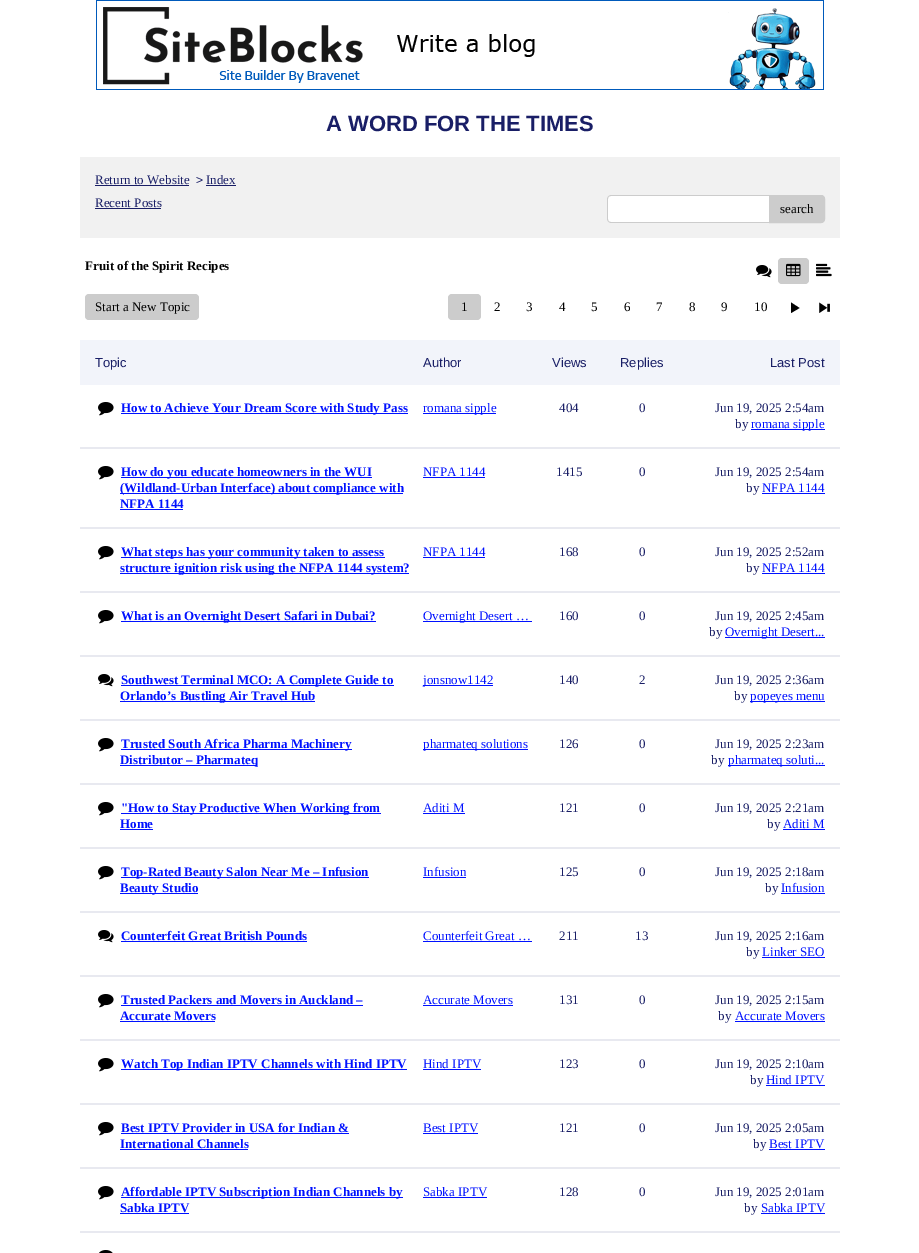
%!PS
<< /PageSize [919 1253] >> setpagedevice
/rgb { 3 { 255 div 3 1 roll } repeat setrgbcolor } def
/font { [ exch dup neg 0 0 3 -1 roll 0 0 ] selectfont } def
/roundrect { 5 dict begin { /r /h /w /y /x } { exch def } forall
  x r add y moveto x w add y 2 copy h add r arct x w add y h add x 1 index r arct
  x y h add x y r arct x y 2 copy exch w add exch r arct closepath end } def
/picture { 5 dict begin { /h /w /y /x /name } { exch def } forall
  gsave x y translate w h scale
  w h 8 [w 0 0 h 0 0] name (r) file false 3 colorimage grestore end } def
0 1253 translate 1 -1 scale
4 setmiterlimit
255 255 255 rgb
0 0 919 1253 rectfill
(img/1.rgb) 96 0 728 90 picture
[
  [80 157 760 81 241 241 241]
  [95 185 94 1 25 30 102]
  [206 185 30 1 25 30 102]
  [95 208 66 1 25 30 102]
] { aload pop rgb rectfill } forall
255 255 255 rgb
607 195 208 28 4 roundrect fill
204 204 204 rgb
611 195 moveto 811 195 lineto 813 195 815 197 815 199 curveto 815 219 lineto 815 221 813 223 811 223 curveto 611 223 lineto 609 223 607 221 607 219 curveto 607 199 lineto 607 197 609 195 611 195 curveto closepath 611 196 moveto 811 196 lineto 813 196 815 197 815 199 curveto 815 219 lineto 815 221 813 222 811 222 curveto 611 222 lineto 609 222 608 221 608 219 curveto 608 199 lineto 608 197 609 196 611 196 curveto closepath eofill
769.5 195.5 moveto 821 195.5 lineto 823 195.5 824.5 197 824.5 199 curveto 824.5 219 lineto 824.5 221 823 222.5 821 222.5 curveto 769.5 222.5 lineto closepath gsave fill grestore
stroke
(img/2.rgb) 756 265 16 13 picture
778 258 31 26 4 roundrect fill
(img/3.rgb) 786 263 15 14 picture
(img/4.rgb) 816 263 16 14 picture
85 294 114 26 4 roundrect fill
448 294 33 26 4 roundrect fill
0 0 0 rgb
791 302.5 moveto 799.5 308 lineto 791 313 lineto closepath fill
(img/5.rgb) 819 302 11 11 picture
242 244 250 rgb
80 340 760 45 rectfill
232 233 240 rgb
80 447 760 2 rectfill
(img/6.rgb) 98 402 16 14 picture
[
  [121 413 287 1 0 17 255]
  [423 413 73 1 0 17 255]
  [751 429 74 1 0 17 255]
  [80 527 760 2 232 233 240]
] { aload pop rgb rectfill } forall
(img/6.rgb) 98 466 16 14 picture
[
  [121 477 251 1 0 17 255]
  [120 493 283 1 0 17 255]
  [120 509 63 1 0 17 255]
  [423 477 62 1 0 17 255]
  [762 493 63 1 0 17 255]
  [80 591 760 2 232 233 240]
] { aload pop rgb rectfill } forall
(img/6.rgb) 98 546 16 14 picture
[
  [121 557 264 1 0 17 255]
  [120 573 289 1 0 17 255]
  [423 557 62 1 0 17 255]
  [762 573 63 1 0 17 255]
  [80 655 760 2 232 233 240]
] { aload pop rgb rectfill } forall
(img/6.rgb) 98 610 16 14 picture
[
  [121 621 255 1 0 17 255]
  [423 621 109 1 0 17 255]
  [725 637 100 1 0 17 255]
  [80 719 760 2 232 233 240]
] { aload pop rgb rectfill } forall
(img/2.rgb) 98 674 16 13 picture
[
  [121 685 273 1 0 17 255]
  [120 701 195 1 0 17 255]
  [423 685 70 1 0 17 255]
  [750 701 75 1 0 17 255]
  [80 783 760 2 232 233 240]
] { aload pop rgb rectfill } forall
(img/6.rgb) 98 738 16 14 picture
[
  [121 749 231 1 0 17 255]
  [120 765 137 1 0 17 255]
  [423 749 105 1 0 17 255]
  [728 765 97 1 0 17 255]
  [80 847 760 2 232 233 240]
] { aload pop rgb rectfill } forall
(img/6.rgb) 98 802 16 14 picture
[
  [121 813 260 1 0 17 255]
  [120 829 33 1 0 17 255]
  [423 813 42 1 0 17 255]
  [783 829 42 1 0 17 255]
  [80 911 760 2 232 233 240]
] { aload pop rgb rectfill } forall
(img/6.rgb) 98 866 16 14 picture
[
  [121 877 248 1 0 17 255]
  [120 893 78 1 0 17 255]
  [423 877 43 1 0 17 255]
  [781 893 44 1 0 17 255]
  [80 975 760 2 232 233 240]
] { aload pop rgb rectfill } forall
(img/2.rgb) 98 930 16 13 picture
[
  [121 941 186 1 0 17 255]
  [423 941 109 1 0 17 255]
  [762 957 63 1 0 17 255]
  [80 1039 760 2 232 233 240]
] { aload pop rgb rectfill } forall
(img/6.rgb) 98 994 16 14 picture
[
  [121 1005 242 1 0 17 255]
  [120 1021 95 1 0 17 255]
  [423 1005 90 1 0 17 255]
  [735 1021 90 1 0 17 255]
  [80 1103 760 2 232 233 240]
] { aload pop rgb rectfill } forall
(img/6.rgb) 98 1058 16 14 picture
[
  [121 1069 286 1 0 17 255]
  [423 1069 58 1 0 17 255]
  [766 1085 59 1 0 17 255]
  [80 1167 760 2 232 233 240]
] { aload pop rgb rectfill } forall
(img/6.rgb) 98 1122 16 14 picture
[
  [121 1133 228 1 0 17 255]
  [120 1149 128 1 0 17 255]
  [423 1133 55 1 0 17 255]
  [769 1149 56 1 0 17 255]
  [80 1231 760 2 232 233 240]
] { aload pop rgb rectfill } forall
(img/6.rgb) 98 1186 16 14 picture
[
  [121 1197 282 1 0 17 255]
  [120 1213 69 1 0 17 255]
  [423 1197 64 1 0 17 255]
  [761 1213 64 1 0 17 255]
] { aload pop rgb rectfill } forall
(img/7.rgb) 99 1250 14 3 picture
/LiberationSans-Bold 22 font
25 30 102 rgb
326 131 moveto (A WORD FOR THE TIMES) show
/LiberationSerif-Regular 13 font
95 184 moveto (Return to Website) show
/LiberationSans-Regular 12 font
196 184 moveto (>) show
/LiberationSerif-Regular 13 font
206 184 moveto (Index) show
95 207 moveto (Recent Posts) show
0 0 0 rgb
780 213 moveto (search) show
/LiberationSerif-Bold 13 font
85 270 moveto (Fruit of the Spirit Recipes) show
/LiberationSerif-Regular 13 font
[
  [(Start a New Topic) 95 311]
  [(1) 461 311]
  [(2) 494 311]
  [(3) 526 311]
  [(4) 559 311]
  [(5) 591 311]
  [(6) 624 311]
  [(7) 656 311]
  [(8) 689 311]
  [(9) 721 311]
  [(10) 754 311]
] { aload pop moveto show } forall
/LiberationSans-Regular 13 font
25 30 102 rgb
[
  [(Topic) 95 367]
  [(Author) 423 367]
  [(Views) 552 367]
  [(Replies) 620 367]
  [(Last Post) 770 367]
] { aload pop moveto show } forall
/LiberationSerif-Bold 13 font
0 17 255 rgb
121 412 moveto (How to Achieve Your Dream Score with Study Pass) show
/LiberationSerif-Regular 13 font
423 412 moveto (romana sipple) show
25 30 102 rgb
[
  [(404) 559 412]
  [(0) 639 412]
  [(Jun 19, 2025 2:54am) 715 412]
  [(by) 735 428]
] { aload pop moveto show } forall
0 17 255 rgb
751 428 moveto (romana sipple) show
/LiberationSerif-Bold 13 font
[
  [(How do you educate homeowners in the WUI) 121 476]
  [(\(Wildland-Urban Interface\) about compliance with) 120 492]
  [(NFPA 1144) 120 508]
] { aload pop moveto show } forall
/LiberationSerif-Regular 13 font
423 476 moveto (NFPA 1144) show
25 30 102 rgb
[
  [(1415) 556 476]
  [(0) 639 476]
  [(Jun 19, 2025 2:54am) 715 476]
  [(by) 746 492]
] { aload pop moveto show } forall
0 17 255 rgb
762 492 moveto (NFPA 1144) show
/LiberationSerif-Bold 13 font
121 556 moveto (What steps has your community taken to assess) show
120 572 moveto (structure ignition risk using the NFPA 1144 system?) show
/LiberationSerif-Regular 13 font
423 556 moveto (NFPA 1144) show
25 30 102 rgb
[
  [(168) 559 556]
  [(0) 639 556]
  [(Jun 19, 2025 2:52am) 715 556]
  [(by) 746 572]
] { aload pop moveto show } forall
0 17 255 rgb
762 572 moveto (NFPA 1144) show
/LiberationSerif-Bold 13 font
121 620 moveto (What is an Overnight Desert Safari in Dubai?) show
/LiberationSerif-Regular 13 font
423 620 moveto (Overnight Desert …) show
25 30 102 rgb
[
  [(160) 559 620]
  [(0) 639 620]
  [(Jun 19, 2025 2:45am) 715 620]
  [(by) 709 636]
] { aload pop moveto show } forall
0 17 255 rgb
725 636 moveto (Overnight Desert...) show
/LiberationSerif-Bold 13 font
121 684 moveto (Southwest Terminal MCO: A Complete Guide to) show
120 700 moveto (Orlando’s Bustling Air Travel Hub) show
/LiberationSerif-Regular 13 font
423 684 moveto (jonsnow1142) show
25 30 102 rgb
[
  [(140) 559 684]
  [(2) 639 684]
  [(Jun 19, 2025 2:36am) 715 684]
  [(by) 734 700]
] { aload pop moveto show } forall
0 17 255 rgb
750 700 moveto (popeyes menu) show
/LiberationSerif-Bold 13 font
121 748 moveto (Trusted South Africa Pharma Machinery) show
120 764 moveto (Distributor – Pharmateq) show
/LiberationSerif-Regular 13 font
423 748 moveto (pharmateq solutions) show
25 30 102 rgb
[
  [(126) 559 748]
  [(0) 639 748]
  [(Jun 19, 2025 2:23am) 715 748]
  [(by) 711 764]
] { aload pop moveto show } forall
0 17 255 rgb
728 764 moveto (pharmateq soluti...) show
/LiberationSerif-Bold 13 font
121 812 moveto ("How to Stay Productive When Working from) show
120 828 moveto (Home) show
/LiberationSerif-Regular 13 font
423 812 moveto (Aditi M) show
25 30 102 rgb
[
  [(121) 559 812]
  [(0) 639 812]
  [(Jun 19, 2025 2:21am) 715 812]
  [(by) 767 828]
] { aload pop moveto show } forall
0 17 255 rgb
783 828 moveto (Aditi M) show
/LiberationSerif-Bold 13 font
121 876 moveto (Top-Rated Beauty Salon Near Me – Infusion) show
120 892 moveto (Beauty Studio) show
/LiberationSerif-Regular 13 font
423 876 moveto (Infusion) show
25 30 102 rgb
[
  [(125) 559 876]
  [(0) 639 876]
  [(Jun 19, 2025 2:18am) 715 876]
  [(by) 765 892]
] { aload pop moveto show } forall
0 17 255 rgb
781 892 moveto (Infusion) show
/LiberationSerif-Bold 13 font
121 940 moveto (Counterfeit Great British Pounds) show
/LiberationSerif-Regular 13 font
423 940 moveto (Counterfeit Great …) show
25 30 102 rgb
[
  [(211) 559 940]
  [(13) 635 940]
  [(Jun 19, 2025 2:16am) 715 940]
  [(by) 746 956]
] { aload pop moveto show } forall
0 17 255 rgb
762 956 moveto (Linker SEO) show
/LiberationSerif-Bold 13 font
121 1004 moveto (Trusted Packers and Movers in Auckland –) show
120 1020 moveto (Accurate Movers) show
/LiberationSerif-Regular 13 font
423 1004 moveto (Accurate Movers) show
25 30 102 rgb
[
  [(131) 559 1004]
  [(0) 639 1004]
  [(Jun 19, 2025 2:15am) 715 1004]
  [(by) 718 1020]
] { aload pop moveto show } forall
0 17 255 rgb
735 1020 moveto (Accurate Movers) show
/LiberationSerif-Bold 13 font
121 1068 moveto (Watch Top Indian IPTV Channels with Hind IPTV) show
/LiberationSerif-Regular 13 font
423 1068 moveto (Hind IPTV) show
25 30 102 rgb
[
  [(123) 559 1068]
  [(0) 639 1068]
  [(Jun 19, 2025 2:10am) 715 1068]
  [(by) 750 1084]
] { aload pop moveto show } forall
0 17 255 rgb
766 1084 moveto (Hind IPTV) show
/LiberationSerif-Bold 13 font
121 1132 moveto (Best IPTV Provider in USA for Indian &) show
120 1148 moveto (International Channels) show
/LiberationSerif-Regular 13 font
423 1132 moveto (Best IPTV) show
25 30 102 rgb
[
  [(121) 559 1132]
  [(0) 639 1132]
  [(Jun 19, 2025 2:05am) 715 1132]
  [(by) 753 1148]
] { aload pop moveto show } forall
0 17 255 rgb
769 1148 moveto (Best IPTV) show
/LiberationSerif-Bold 13 font
121 1196 moveto (Affordable IPTV Subscription Indian Channels by) show
120 1212 moveto (Sabka IPTV) show
/LiberationSerif-Regular 13 font
423 1196 moveto (Sabka IPTV) show
25 30 102 rgb
[
  [(128) 559 1196]
  [(0) 639 1196]
  [(Jun 19, 2025 2:01am) 715 1196]
  [(by) 744 1212]
] { aload pop moveto show } forall
0 17 255 rgb
761 1212 moveto (Sabka IPTV) show
showpage
